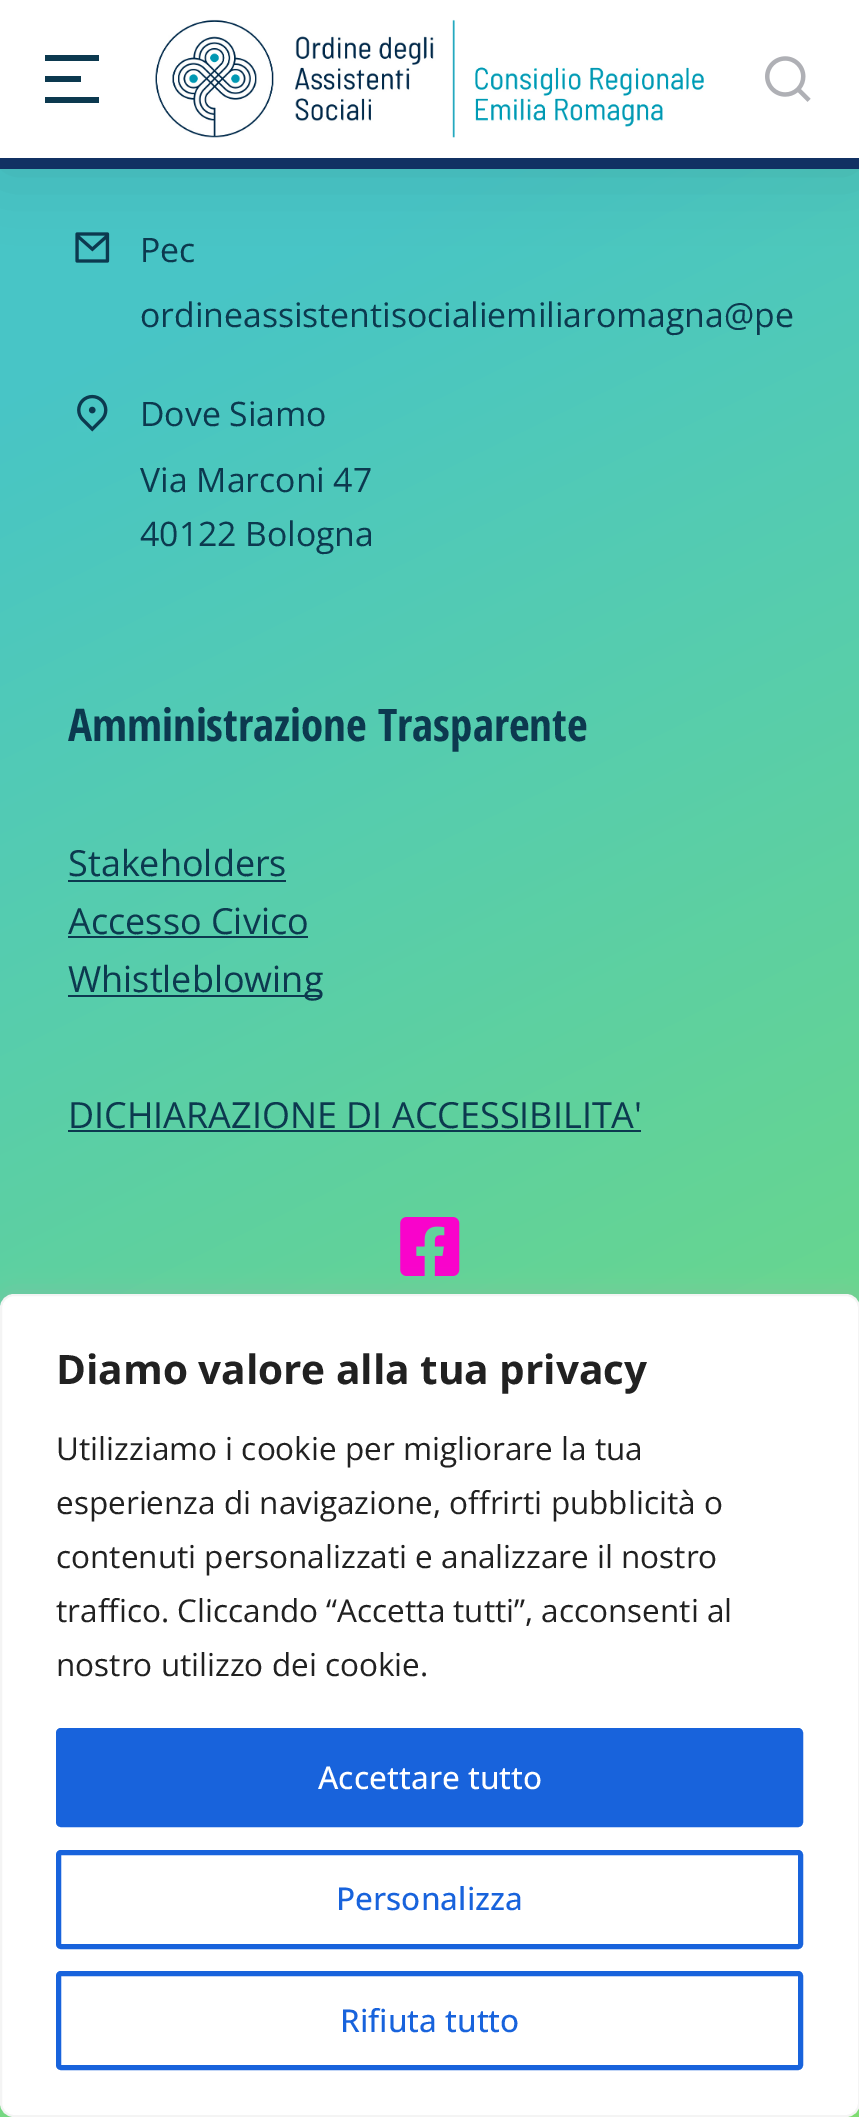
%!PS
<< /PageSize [859 2117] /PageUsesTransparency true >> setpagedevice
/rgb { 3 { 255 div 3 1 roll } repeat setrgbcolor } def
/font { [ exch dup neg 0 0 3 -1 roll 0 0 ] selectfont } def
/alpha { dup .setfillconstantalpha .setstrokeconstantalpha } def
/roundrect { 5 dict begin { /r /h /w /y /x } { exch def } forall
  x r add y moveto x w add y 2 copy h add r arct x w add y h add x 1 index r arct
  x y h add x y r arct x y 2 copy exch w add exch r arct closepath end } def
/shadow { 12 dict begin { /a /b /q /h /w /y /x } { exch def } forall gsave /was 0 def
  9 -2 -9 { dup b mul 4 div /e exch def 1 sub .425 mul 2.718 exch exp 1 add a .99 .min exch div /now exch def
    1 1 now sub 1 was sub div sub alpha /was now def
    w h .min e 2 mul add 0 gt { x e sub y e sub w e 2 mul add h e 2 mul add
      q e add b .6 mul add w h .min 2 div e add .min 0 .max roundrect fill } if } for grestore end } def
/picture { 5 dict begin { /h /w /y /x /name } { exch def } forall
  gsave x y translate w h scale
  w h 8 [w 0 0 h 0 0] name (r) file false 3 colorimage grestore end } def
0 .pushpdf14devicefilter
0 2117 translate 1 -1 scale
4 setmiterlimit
255 255 255 rgb
0 0 859 2117 rectfill
gsave 0 169 moveto 859 169 lineto 859 2117 lineto 0 2117 lineto closepath clip newpath
<< /ShadingType 2 /ColorSpace /DeviceRGB /Coords [-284 -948 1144 1981] /Extend [true true] /Function << /FunctionType 3 /Domain [0 1] /Functions [<< /FunctionType 2 /Domain [0 1] /C0 [0.282 0.773 0.776] /C1 [0.282 0.773 0.776] /N 1 >> << /FunctionType 2 /Domain [0 1] /C0 [0.282 0.773 0.776] /C1 [0.482 0.882 0.427] /N 1 >>] /Bounds [0.41] /Encode [0 1 0 1] >> >> shfill grestore
(img/3.rgb) 75 232 35 31 picture
0 0 0 rgb
0 0 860 169 0 34 0.1 shadow
255 255 255 rgb
0 0 859 158 rectfill
17 49 99 rgb
0 158 859 11 rectfill
12 57 79 rgb
45 55 moveto 99 55 lineto 99 61 lineto 45 61 lineto closepath 45 76 moveto 81 76 lineto 81 82 lineto 45 82 lineto closepath 45 97 moveto 99 97 lineto 99 103 lineto 45 103 lineto closepath fill
(img/1.rgb) 155 19 549 119 picture
(img/2.rgb) 765 56 46 46 picture
(img/4.rgb) 77 394 31 38 picture
[
  [68 880 218 2 12 57 79]
  [68 936 240 2 12 57 79]
  [68 995 254 2 12 57 79]
  [68 1130 573 2 12 57 79]
] { aload pop rgb rectfill } forall
(img/5.rgb) 400 1217 60 59 picture
172 171 171 rgb
0 1292 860 823 14 11 0.3 shadow
255 255 255 rgb
1 1295 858 821 13 roundrect gsave fill grestore
244 244 244 rgb
2 setlinewidth
stroke
24 99 220 rgb
58.5 1730.5 742 94 2.5 roundrect gsave fill grestore
5 setlinewidth
stroke
58.5 1852.5 742 94 2.5 roundrect stroke
58.5 1973.5 742 94 2.5 roundrect stroke
/OpenSans-Regular 33.75 font
12 57 79 rgb
[
  [(Pec) 140 262]
  [(ordineassistentisocialiemiliaromagna@pe) 140 327]
  [(Dove Siamo) 140 426]
  [(Via Marconi 47) 140 492]
  [(40122 Bologna) 140 546]
] { aload pop moveto show } forall
/OpenSansCondensed-Bold 45 font
68 741 moveto (Amministrazione Trasparente) show
/OpenSans-Regular 36 font
[
  [(Stakeholders) 68 876]
  [(Accesso Civico) 68 934]
  [(Whistleblowing) 68 992]
  [(DICHIARAZIONE DI ACCESSIBILITA') 68 1128]
] { aload pop moveto show } forall
/OpenSans-Bold 40.5 font
33 33 33 rgb
56 1384 moveto (Diamo valore alla tua privacy) show
/OpenSans-Regular 31.5 font
[
  [(Utilizziamo i cookie per migliorare la tua) 56 1460]
  [(esperienza di navigazione, offrirti pubblicità o) 56 1514]
  [(contenuti personalizzati e analizzare il nostro) 56 1568]
  [(traffico. Cliccando “Accetta tutti”, acconsenti al) 56 1622]
  [(nostro utilizzo dei cookie.) 56 1676]
] { aload pop moveto show } forall
/OpenSans-Medium 31.5 font
255 255 255 rgb
318 1789 moveto (Accettare tutto) show
24 99 220 rgb
336 1910 moveto (Personalizza) show
340 2032 moveto (Rifiuta tutto) show
.poppdf14devicefilter showpage
